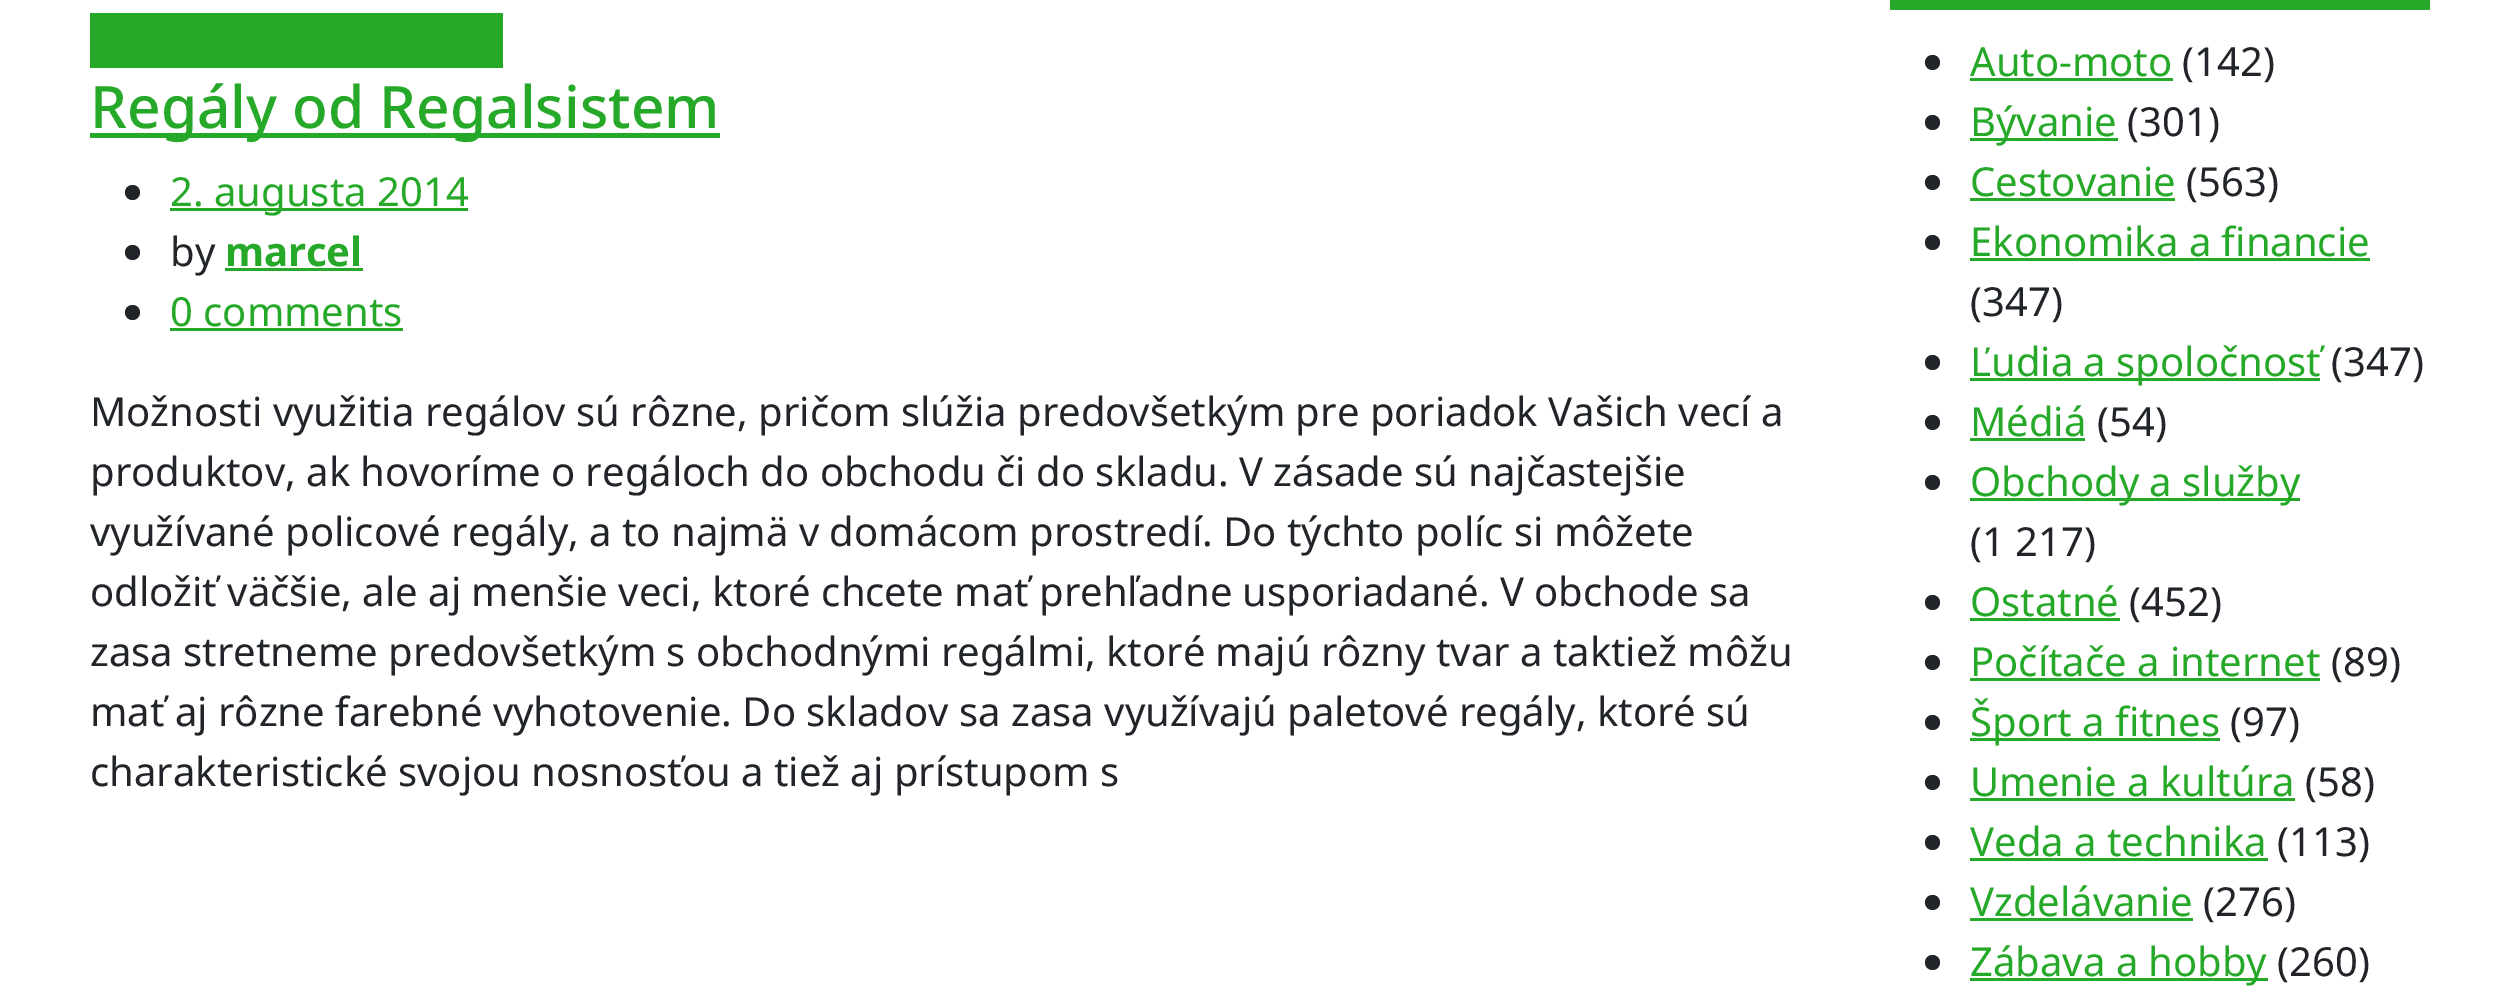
%!PS
<< /PageSize [2518 994] >> setpagedevice
/rgb { 3 { 255 div 3 1 roll } repeat setrgbcolor } def
/font { [ exch dup neg 0 0 3 -1 roll 0 0 ] selectfont } def
/circle { newpath 0 360 arc closepath } def
0 994 translate 1 -1 scale
4 setmiterlimit
255 255 255 rgb
0 0 2518 994 rectfill
38 168 40 rgb
90 13 413 55 rectfill
90 133 630 5 rectfill
33 37 41 rgb
132.5 192.5 7.5 circle fill
38 168 40 rgb
170 208 298 3 rectfill
33 37 41 rgb
132.5 252.5 7.5 circle fill
38 168 40 rgb
225 268 138 3 rectfill
33 37 41 rgb
132.5 312.5 7.5 circle fill
38 168 40 rgb
170 328 233 3 rectfill
1890 0 540 10 rectfill
33 37 41 rgb
1932.5 62.5 7.5 circle fill
38 168 40 rgb
1970 78 203 3 rectfill
33 37 41 rgb
1932.5 122.5 7.5 circle fill
38 168 40 rgb
1970 138 148 3 rectfill
33 37 41 rgb
1932.5 182.5 7.5 circle fill
38 168 40 rgb
1970 198 205 3 rectfill
33 37 41 rgb
1932.5 242.5 7.5 circle fill
38 168 40 rgb
1970 258 400 3 rectfill
33 37 41 rgb
1932.5 362.5 7.5 circle fill
38 168 40 rgb
1970 378 350 3 rectfill
33 37 41 rgb
1932.5 422.5 7.5 circle fill
38 168 40 rgb
1970 438 115 3 rectfill
33 37 41 rgb
1932.5 482.5 7.5 circle fill
38 168 40 rgb
1970 498 330 3 rectfill
33 37 41 rgb
1932.5 602.5 7.5 circle fill
38 168 40 rgb
1970 618 150 3 rectfill
33 37 41 rgb
1932.5 662.5 7.5 circle fill
38 168 40 rgb
1970 678 350 3 rectfill
33 37 41 rgb
1932.5 722.5 7.5 circle fill
38 168 40 rgb
1970 738 250 3 rectfill
33 37 41 rgb
1932.5 782.5 7.5 circle fill
38 168 40 rgb
1970 798 325 3 rectfill
33 37 41 rgb
1932.5 842.5 7.5 circle fill
38 168 40 rgb
1970 858 298 3 rectfill
33 37 41 rgb
1932.5 902.5 7.5 circle fill
38 168 40 rgb
1970 918 223 3 rectfill
33 37 41 rgb
1932.5 962.5 7.5 circle fill
38 168 40 rgb
1970 978 298 3 rectfill
/NotoSans-Medium 58.5 font
90 128 moveto (Regály od Regalsistem) show
/NotoSans-Regular 40 font
170 206 moveto (2. augusta 2014) show
33 37 41 rgb
170 266 moveto (by) show
/NotoSans-Bold 40 font
38 168 40 rgb
225 266 moveto (marcel) show
/NotoSans-Regular 40 font
170 326 moveto (0 comments) show
33 37 41 rgb
[
  [(Možnosti využitia regálov sú rôzne, pričom slúžia predovšetkým pre poriadok Vašich vecí a) 90 426]
  [(produktov, ak hovoríme o regáloch do obchodu či do skladu. V zásade sú najčastejšie) 90 486]
  [(využívané policové regály, a to najmä v domácom prostredí. Do týchto políc si môžete) 90 546]
  [(odložiť väčšie, ale aj menšie veci, ktoré chcete mať prehľadne usporiadané. V obchode sa) 90 606]
  [(zasa stretneme predovšetkým s obchodnými regálmi, ktoré majú rôzny tvar a taktiež môžu) 90 666]
  [(mať aj rôzne farebné vyhotovenie. Do skladov sa zasa využívajú paletové regály, ktoré sú) 90 726]
  [(charakteristické svojou nosnosťou a tiež aj prístupom s) 90 786]
] { aload pop moveto show } forall
38 168 40 rgb
1970 76 moveto (Auto-moto) show
33 37 41 rgb
2182 76 moveto (\(142\)) show
38 168 40 rgb
1970 136 moveto (Bývanie) show
33 37 41 rgb
2127 136 moveto (\(301\)) show
38 168 40 rgb
1970 196 moveto (Cestovanie) show
33 37 41 rgb
2186 196 moveto (\(563\)) show
38 168 40 rgb
1970 256 moveto (Ekonomika a financie) show
33 37 41 rgb
1970 316 moveto (\(347\)) show
38 168 40 rgb
1970 376 moveto (Ľudia a spoločnosť) show
33 37 41 rgb
2331 376 moveto (\(347\)) show
38 168 40 rgb
1970 436 moveto (Médiá) show
33 37 41 rgb
2097 436 moveto (\(54\)) show
38 168 40 rgb
1970 496 moveto (Obchody a služby) show
33 37 41 rgb
1970 556 moveto (\(1 217\)) show
38 168 40 rgb
1970 616 moveto (Ostatné) show
33 37 41 rgb
2129 616 moveto (\(452\)) show
38 168 40 rgb
1970 676 moveto (Počítače a internet) show
33 37 41 rgb
2331 676 moveto (\(89\)) show
38 168 40 rgb
1970 736 moveto (Šport a fitnes) show
33 37 41 rgb
2230 736 moveto (\(97\)) show
38 168 40 rgb
1970 796 moveto (Umenie a kultúra) show
33 37 41 rgb
2305 796 moveto (\(58\)) show
38 168 40 rgb
1970 856 moveto (Veda a technika) show
33 37 41 rgb
2277 856 moveto (\(113\)) show
38 168 40 rgb
1970 916 moveto (Vzdelávanie) show
33 37 41 rgb
2203 916 moveto (\(276\)) show
38 168 40 rgb
1970 976 moveto (Zábava a hobby) show
33 37 41 rgb
2277 976 moveto (\(260\)) show
showpage
